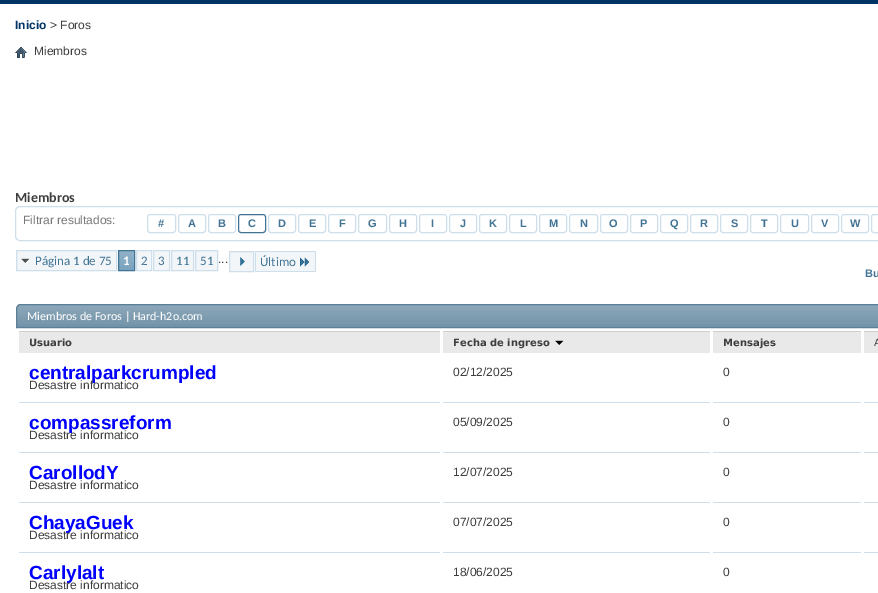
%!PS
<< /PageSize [878 593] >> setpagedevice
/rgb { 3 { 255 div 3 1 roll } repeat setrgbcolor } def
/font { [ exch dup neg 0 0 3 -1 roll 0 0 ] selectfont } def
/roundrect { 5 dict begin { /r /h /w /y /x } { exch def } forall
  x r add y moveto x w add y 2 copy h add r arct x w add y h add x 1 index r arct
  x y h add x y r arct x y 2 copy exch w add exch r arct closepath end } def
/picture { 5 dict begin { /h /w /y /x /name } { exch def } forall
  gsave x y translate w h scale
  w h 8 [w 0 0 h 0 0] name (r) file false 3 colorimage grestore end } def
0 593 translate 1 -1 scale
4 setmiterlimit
255 255 255 rgb
0 0 878 593 rectfill
0 51 102 rgb
0 0 878 4 rectfill
(img/1.rgb) 15 47 12 11 picture
206 223 235 rgb
15.5 206.5 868 34 4.5 roundrect stroke
147.5 214.5 28 18 2.5 roundrect stroke
178.5 214.5 27 18 2.5 roundrect stroke
208.5 214.5 27 18 2.5 roundrect stroke
65 115 148 rgb
238.5 214.5 27 18 2.5 roundrect stroke
206 223 235 rgb
268.5 214.5 27 18 2.5 roundrect stroke
298.5 214.5 27 18 2.5 roundrect stroke
328.5 214.5 27 18 2.5 roundrect stroke
358.5 214.5 28 18 2.5 roundrect stroke
389.5 214.5 27 18 2.5 roundrect stroke
419.5 214.5 27 18 2.5 roundrect stroke
449.5 214.5 27 18 2.5 roundrect stroke
479.5 214.5 27 18 2.5 roundrect stroke
509.5 214.5 27 18 2.5 roundrect stroke
539.5 214.5 27 18 2.5 roundrect stroke
569.5 214.5 28 18 2.5 roundrect stroke
600.5 214.5 27 18 2.5 roundrect stroke
630.5 214.5 27 18 2.5 roundrect stroke
660.5 214.5 27 18 2.5 roundrect stroke
690.5 214.5 27 18 2.5 roundrect stroke
720.5 214.5 27 18 2.5 roundrect stroke
750.5 214.5 27 18 2.5 roundrect stroke
780.5 214.5 28 18 2.5 roundrect stroke
811.5 214.5 27 18 2.5 roundrect stroke
841.5 214.5 27 18 2.5 roundrect stroke
871.5 214.5 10 18 2.5 roundrect stroke
242 246 248 rgb
17 251 99 19 rectfill
(img/2.rgb) 21 258 9 6 picture
206 223 235 rgb
16.5 250.5 100 20 rectstroke
117 159 187 rgb
119 251 15 19 rectfill
(img/3.rgb) 119 251 15 19 picture
65 115 148 rgb
118.5 250.5 16 20 rectstroke
242 246 248 rgb
136.5 250.5 moveto 151.5 250.5 lineto 151.5 270.5 lineto 136.5 270.5 lineto closepath gsave fill grestore
206 223 235 rgb
stroke
242 246 248 rgb
153.5 250.5 moveto 169.5 250.5 lineto 169.5 270.5 lineto 153.5 270.5 lineto closepath gsave fill grestore
206 223 235 rgb
stroke
242 246 248 rgb
171.5 250.5 moveto 193.5 250.5 lineto 193.5 270.5 lineto 171.5 270.5 lineto closepath gsave fill grestore
206 223 235 rgb
stroke
242 246 248 rgb
195.5 250.5 moveto 217.5 250.5 lineto 217.5 270.5 lineto 195.5 270.5 lineto closepath gsave fill grestore
206 223 235 rgb
stroke
242 246 248 rgb
229.5 251.5 moveto 253.5 251.5 lineto 253.5 271.5 lineto 229.5 271.5 lineto closepath gsave fill grestore
206 223 235 rgb
stroke
(img/4.rgb) 240 257 5 9 picture
[
  [256 252 59 19 242 246 248]
  [255 251 61 1 206 223 235]
  [255 271 41 1 206 223 235]
  [255 251 1 21 206 223 235]
  [315 251 1 21 206 223 235]
  [296 271 20 1 206 223 235]
] { aload pop rgb rectfill } forall
(img/5.rgb) 300 257 10 10 picture
113 146 168 rgb
21 304 moveto 878 304 lineto 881 304 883 306 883 309 curveto 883 328 lineto 16 328 lineto 16 309 lineto 16 306 18 304 21 304 curveto closepath fill
(img/6.rgb) 16 305 862 20 picture
90 127 151 rgb
21 304.5 moveto 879 304.5 lineto 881.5 304.5 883.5 306.5 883.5 309 curveto 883.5 327.5 lineto 16.5 327.5 lineto 16.5 309 lineto 16.5 306.5 18.5 304.5 21 304.5 curveto closepath stroke
[
  [19 332 421 21 233 233 233]
  [19 331 421 1 206 206 206]
  [443 332 267 21 233 233 233]
  [443 331 267 1 206 206 206]
] { aload pop rgb rectfill } forall
(img/7.rgb) 555 340 9 5 picture
[
  [713 332 148 21 233 233 233]
  [713 331 148 1 206 206 206]
  [864 332 14 21 233 233 233]
  [864 331 14 1 206 206 206]
  [19 402 421 1 206 223 235]
  [443 402 267 1 206 223 235]
  [713 402 148 1 206 223 235]
  [864 402 14 1 206 223 235]
  [19 452 421 1 206 223 235]
  [443 452 267 1 206 223 235]
  [713 452 148 1 206 223 235]
  [864 452 14 1 206 223 235]
  [19 502 421 1 206 223 235]
  [443 502 267 1 206 223 235]
  [713 502 148 1 206 223 235]
  [864 502 14 1 206 223 235]
  [19 552 421 1 206 223 235]
  [443 552 267 1 206 223 235]
  [713 552 148 1 206 223 235]
  [864 552 14 1 206 223 235]
] { aload pop rgb rectfill } forall
/LiberationSans-Bold 12 font
0 51 102 rgb
15 29 moveto (Inicio) show
/LiberationSans-Regular 12 font
62 62 62 rgb
50 29 moveto (> Foros) show
34 55 moveto (Miembros) show
/Carlito-Bold 14 font
15 202 moveto (Miembros) show
/LiberationSans-Regular 12 font
119 119 119 rgb
23 224 moveto (Filtrar resultados:) show
/LiberationSans-Bold 11 font
65 115 148 rgb
[
  [(#) 158 227]
  [(A) 188 227]
  [(B) 218 227]
  [(C) 248 227]
  [(D) 278 227]
  [(E) 309 227]
  [(F) 339 227]
  [(G) 368 227]
  [(H) 399 227]
  [(I) 431 227]
  [(J) 460 227]
  [(K) 489 227]
  [(L) 520 227]
  [(M) 549 227]
  [(N) 580 227]
  [(O) 609 227]
  [(P) 640 227]
  [(Q) 670 227]
  [(R) 700 227]
  [(S) 731 227]
  [(T) 761 227]
  [(U) 791 227]
  [(V) 821 227]
  [(W) 850 227]
] { aload pop moveto show } forall
/Carlito-Regular 13 font
35 265 moveto (Página 1 de 75) show
/Carlito-Bold 13 font
255 255 255 rgb
123 265 moveto (1) show
/Carlito-Regular 13 font
65 115 148 rgb
[
  [(2) 141 265]
  [(3) 158 265]
  [(11) 176 265]
  [(51) 200 265]
] { aload pop moveto show } forall
/LiberationSans-Regular 12 font
62 62 62 rgb
218 263 moveto (...) show
/Carlito-Regular 13 font
65 115 148 rgb
260 266 moveto (Último) show
/LiberationSans-Bold 11 font
865 277 moveto (Bu) show
/Carlito-Regular 12 font
255 255 255 rgb
27 320 moveto (Miembros de Foros | Hard-h2o.com) show
/DejaVuSans-Bold 10 font
62 62 62 rgb
[
  [(Usuario) 29 346]
  [(Fecha de ingreso) 453 346]
  [(Mensajes) 723 346]
] { aload pop moveto show } forall
/DejaVuSans-Regular 10 font
874 346 moveto (A) show
/LiberationSans-Bold 19 font
0 0 255 rgb
29 379 moveto (centralparkcrumpled) show
/LiberationSans-Regular 12 font
62 62 62 rgb
[
  [(Desastre informatico) 29 389]
  [(02/12/2025) 453 376]
  [(0) 723 376]
] { aload pop moveto show } forall
/LiberationSans-Bold 19 font
0 0 255 rgb
29 429 moveto (compassreform) show
/LiberationSans-Regular 12 font
62 62 62 rgb
[
  [(Desastre informatico) 29 439]
  [(05/09/2025) 453 426]
  [(0) 723 426]
] { aload pop moveto show } forall
/LiberationSans-Bold 19 font
0 0 255 rgb
29 479 moveto (CarollodY) show
/LiberationSans-Regular 12 font
62 62 62 rgb
[
  [(Desastre informatico) 29 489]
  [(12/07/2025) 453 476]
  [(0) 723 476]
] { aload pop moveto show } forall
/LiberationSans-Bold 19 font
0 0 255 rgb
29 529 moveto (ChayaGuek) show
/LiberationSans-Regular 12 font
62 62 62 rgb
[
  [(Desastre informatico) 29 539]
  [(07/07/2025) 453 526]
  [(0) 723 526]
] { aload pop moveto show } forall
/LiberationSans-Bold 19 font
0 0 255 rgb
29 579 moveto (Carlylalt) show
/LiberationSans-Regular 12 font
62 62 62 rgb
[
  [(Desastre informatico) 29 589]
  [(18/06/2025) 453 576]
  [(0) 723 576]
] { aload pop moveto show } forall
showpage
